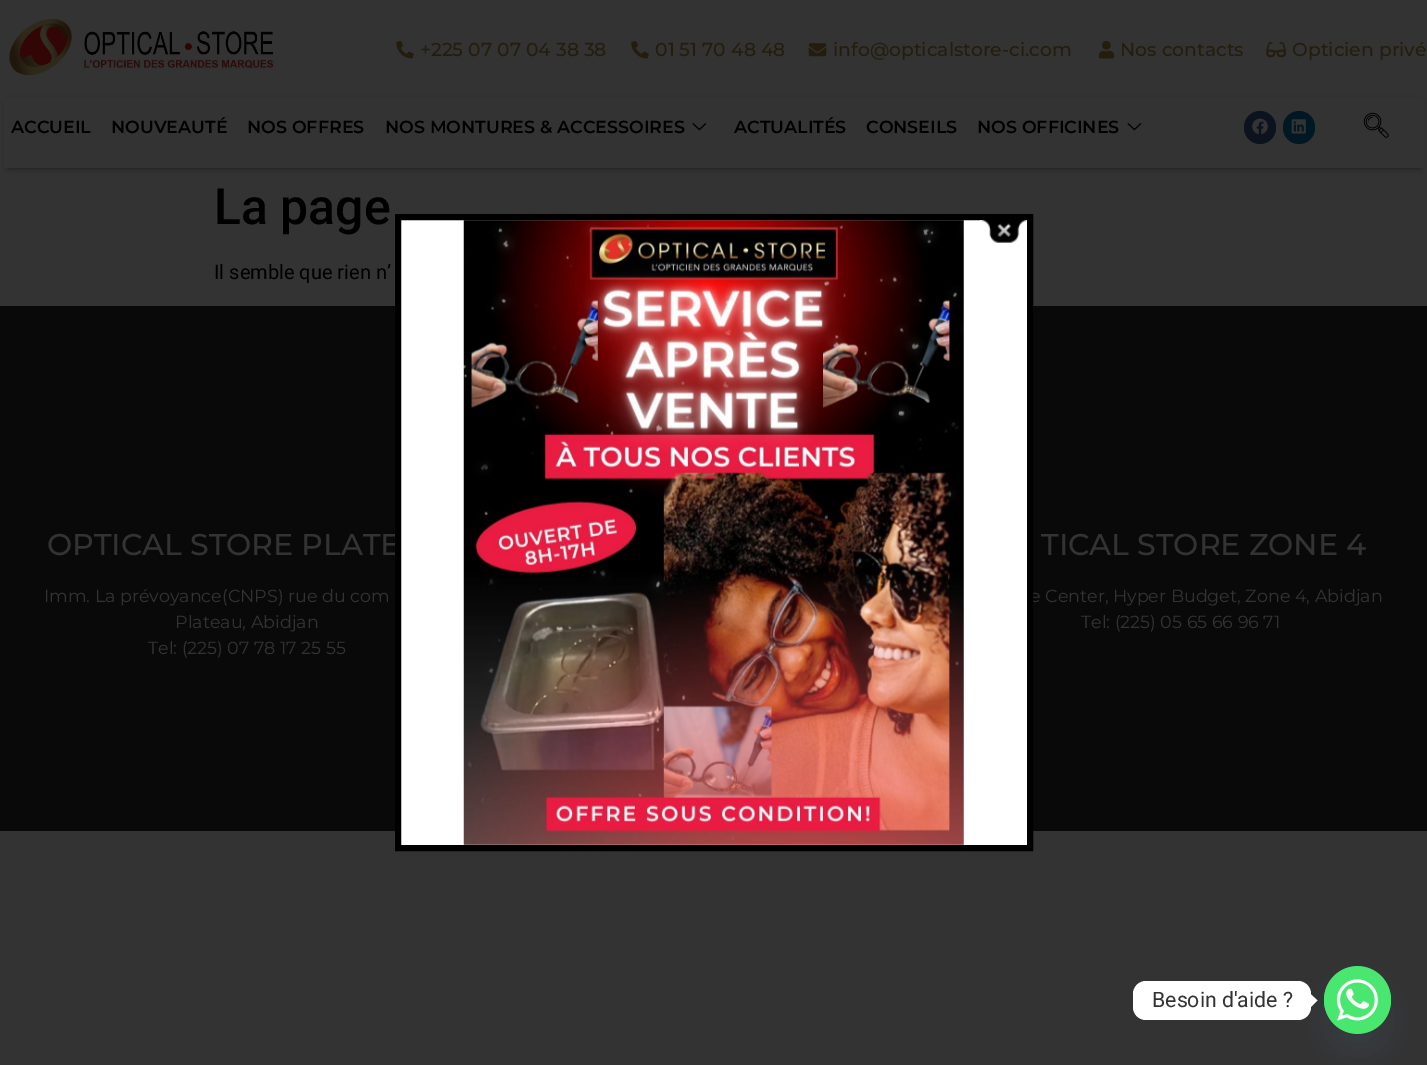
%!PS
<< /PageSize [1427 1065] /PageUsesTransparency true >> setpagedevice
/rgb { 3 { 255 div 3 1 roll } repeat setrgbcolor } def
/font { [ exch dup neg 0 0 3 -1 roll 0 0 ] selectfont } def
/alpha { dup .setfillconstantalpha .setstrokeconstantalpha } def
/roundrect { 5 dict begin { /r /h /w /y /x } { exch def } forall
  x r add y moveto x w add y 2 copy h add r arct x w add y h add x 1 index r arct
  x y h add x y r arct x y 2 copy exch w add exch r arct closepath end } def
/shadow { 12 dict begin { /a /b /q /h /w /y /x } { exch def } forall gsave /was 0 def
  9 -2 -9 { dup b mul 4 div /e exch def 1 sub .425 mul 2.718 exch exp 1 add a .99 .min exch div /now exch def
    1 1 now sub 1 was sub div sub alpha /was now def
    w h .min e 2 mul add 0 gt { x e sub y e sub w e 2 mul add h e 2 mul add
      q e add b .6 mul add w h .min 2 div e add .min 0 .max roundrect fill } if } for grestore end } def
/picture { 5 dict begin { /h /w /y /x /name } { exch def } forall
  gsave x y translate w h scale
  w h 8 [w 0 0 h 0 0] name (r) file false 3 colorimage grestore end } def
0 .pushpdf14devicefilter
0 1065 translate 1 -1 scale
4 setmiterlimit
51 51 51 rgb
0 0 1427 1065 rectfill
(img/1.rgb) 8 17 268 59 picture
(img/2.rgb) 396 41 18 18 picture
(img/2.rgb) 631 41 18 18 picture
(img/3.rgb) 808 43 19 14 picture
(img/4.rgb) 1098 40 17 19 picture
(img/5.rgb) 1266 42 20 16 picture
0 0 0 rgb
8 101 1412 67 0 3 0.5 shadow
51 51 51 rgb
4 97 1420 71 rectfill
(img/6.rgb) 692 123 15 8 picture
(img/6.rgb) 1127 123 15 8 picture
12 18 30 rgb
1244 111 32 33 16 roundrect fill
(img/7.rgb) 1252 118 16 17 picture
0 24 36 rgb
1283 111 32 33 16 roundrect fill
(img/8.rgb) 1291 119 15 15 picture
(img/9.rgb) 1363 112 26 26 picture
9 9 9 rgb
0 306 1427 525 rectfill
255 255 255 rgb
401 220 626 625 rectfill
(img/10.rgb) 463 220 501 625 picture
73 104 126 rgb
1324 986 67 68 33.5 15 0.16 shadow
255 255 255 rgb
1133 981 178 39 13 roundrect fill
1311 1007 moveto 1311 994.5 lineto 1317.5 1000.5 lineto closepath fill
73 230 112 rgb
1324 966 67 68 33.5 roundrect fill
(img/12.rgb) 1324 966 67 68 picture
/Montserrat-Medium 18.75 font
36 29 13 rgb
[
  [(+225 07 07 04 38 38) 420 56]
  [(01 51 70 48 48) 655 56]
  [(info@opticalstore-ci.com) 833 56]
  [(Nos contacts) 1120 56]
  [(Opticien privé) 1292 56]
] { aload pop moveto show } forall
/Montserrat-SemiBold 17.5 font
0 0 0 rgb
[
  [(ACCUEIL) 11 133]
  [(NOUVEAUTÉ) 111 133]
  [(NOS OFFRES) 247 133]
  [(NOS MONTURES & ACCESSOIRES) 385 133]
  [(ACTUALITÉS) 734 133]
  [(CONSEILS) 866 133]
  [(NOS OFFICINES) 977 133]
] { aload pop moveto show } forall
/Roboto-Medium 50 font
214 224 moveto (La page) show
/Roboto-Regular 20 font
214 279 moveto (Il semble que rien n’) show
/Montserrat-Medium 30 font
51 51 51 rgb
47 555 moveto (OPTICAL STORE PLATE) show
/Montserrat-Regular 17.5 font
[
  [(Imm. La prévoyance\(CNPS\) rue du com) 44 602]
  [(Plateau, Abidjan) 175 628]
  [(Tel: \(225\) 07 78 17 25 55) 148 654]
] { aload pop moveto show } forall
/Montserrat-Medium 30 font
1041 555 moveto (TICAL STORE ZONE 4) show
/Montserrat-Regular 17.5 font
1030 602 moveto (e Center, Hyper Budget, Zone 4, Abidjan) show
0 0 0 rgb
6 setlinewidth
398 217 632 631 rectstroke
(img/11.rgb) 980 220 47 23 picture
51 51 51 rgb
1081 628 moveto (Tel: \(225\) 05 65 66 96 71) show
/Roboto-Regular 21.25 font
1152 1007 moveto (Besoin d'aide ?) show
.poppdf14devicefilter showpage
